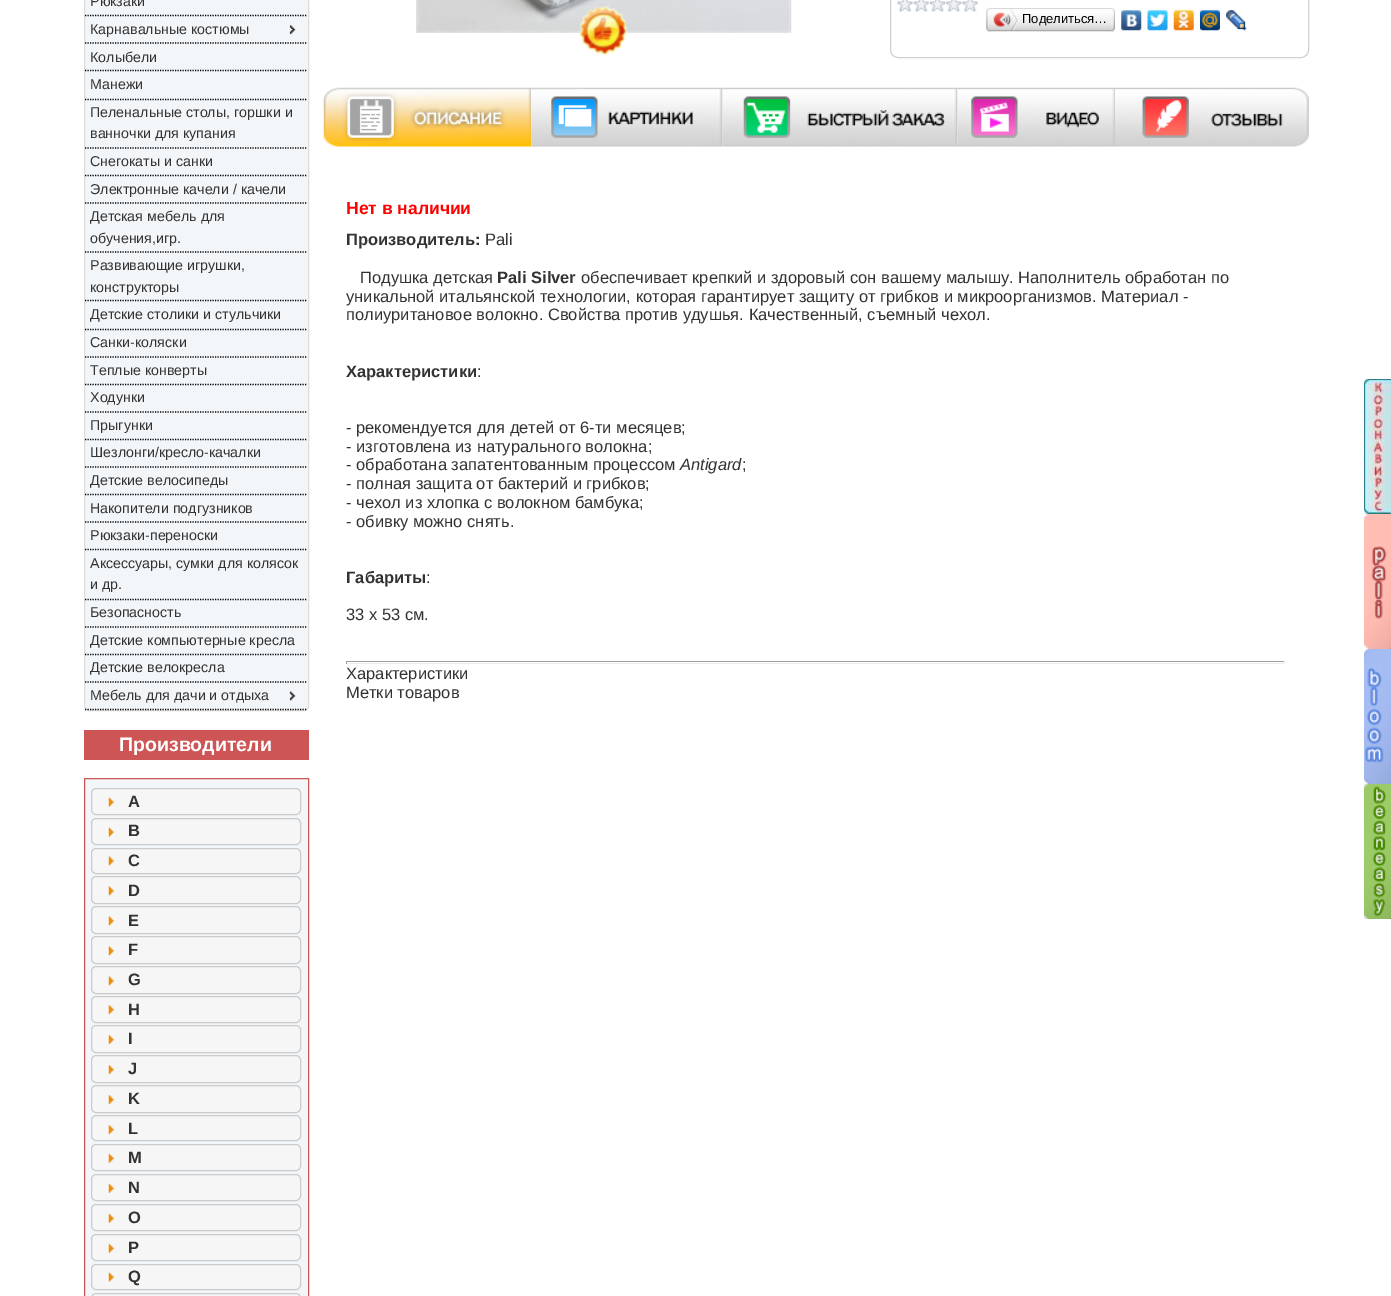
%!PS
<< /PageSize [1391 1296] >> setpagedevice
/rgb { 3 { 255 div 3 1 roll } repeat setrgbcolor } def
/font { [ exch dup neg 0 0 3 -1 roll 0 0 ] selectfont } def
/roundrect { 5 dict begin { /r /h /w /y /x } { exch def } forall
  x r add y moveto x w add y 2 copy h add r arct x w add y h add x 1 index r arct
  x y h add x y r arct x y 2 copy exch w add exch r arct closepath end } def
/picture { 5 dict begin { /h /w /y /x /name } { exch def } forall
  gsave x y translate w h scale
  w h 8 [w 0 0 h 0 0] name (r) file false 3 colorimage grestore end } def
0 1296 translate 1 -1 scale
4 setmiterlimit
255 255 255 rgb
0 0 1391 1296 rectfill
242 246 249 rgb
84.5 -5.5 224 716 4.5 roundrect gsave fill grestore
221 221 221 rgb
stroke
0 0 0 rgb
1.2 setlinewidth
[1.25 1.25] 0 setdash
85 15.5 moveto 307.5 15.5 lineto stroke
85 43 moveto 307.5 43 lineto stroke
(img/1.rgb) 289 25 7 10 picture
85 70.5 moveto 307.5 70.5 lineto stroke
85 99.5 moveto 307.5 99.5 lineto stroke
85 148 moveto 307.5 148 lineto stroke
85 175.5 moveto 307.5 175.5 lineto stroke
85 203 moveto 307.5 203 lineto stroke
85 252 moveto 307.5 252 lineto stroke
85 300.5 moveto 307.5 300.5 lineto stroke
85 329.5 moveto 307.5 329.5 lineto stroke
85 357 moveto 307.5 357 lineto stroke
85 384.5 moveto 307.5 384.5 lineto stroke
85 412 moveto 307.5 412 lineto stroke
85 439.5 moveto 307.5 439.5 lineto stroke
85 467 moveto 307.5 467 lineto stroke
85 494.5 moveto 307.5 494.5 lineto stroke
85 522 moveto 307.5 522 lineto stroke
85 549.5 moveto 307.5 549.5 lineto stroke
85 599.5 moveto 307.5 599.5 lineto stroke
85 627 moveto 307.5 627 lineto stroke
85 654.5 moveto 307.5 654.5 lineto stroke
85 682 moveto 307.5 682 lineto stroke
85 709.5 moveto 307.5 709.5 lineto stroke
(img/2.rgb) 289 691 7 10 picture
205 85 85 rgb
84 730 225 30 rectfill
242 246 249 rgb
84.5 778.5 moveto 308.5 778.5 lineto 308.5 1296.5 lineto 84.5 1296.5 lineto closepath gsave fill grestore
205 85 85 rgb
1 setlinewidth
[] 0 setdash
stroke
246 246 246 rgb
91 788 210 27 5 roundrect fill
248 248 248 rgb
297 788 1 27 rectfill
204 204 204 rgb
91.5 788.5 209 26 4.5 roundrect stroke
(img/3.rgb) 108 797 6 10 picture
246 246 246 rgb
91 818 210 27 5 roundrect fill
248 248 248 rgb
297 818 1 27 rectfill
204 204 204 rgb
91.5 818.5 209 26 4.5 roundrect stroke
(img/3.rgb) 108 827 6 10 picture
246 246 246 rgb
91.5 848.5 209 25 4.5 roundrect gsave fill grestore
204 204 204 rgb
stroke
(img/4.rgb) 108 856 6 10 picture
246 246 246 rgb
91.5 876.5 209 27 4.5 roundrect gsave fill grestore
204 204 204 rgb
stroke
(img/4.rgb) 108 886 6 10 picture
246 246 246 rgb
91.5 906.5 209 27 4.5 roundrect gsave fill grestore
204 204 204 rgb
stroke
(img/4.rgb) 108 916 6 10 picture
246 246 246 rgb
91.5 936.5 209 27 4.5 roundrect gsave fill grestore
204 204 204 rgb
stroke
(img/4.rgb) 108 946 6 10 picture
246 246 246 rgb
91.5 966.5 209 27 4.5 roundrect gsave fill grestore
204 204 204 rgb
stroke
(img/4.rgb) 108 976 6 10 picture
246 246 246 rgb
91.5 996.5 209 26 4.5 roundrect gsave fill grestore
204 204 204 rgb
stroke
(img/5.rgb) 108 1005 6 10 picture
246 246 246 rgb
91.5 1025.5 209 27 4.5 roundrect gsave fill grestore
204 204 204 rgb
stroke
(img/5.rgb) 108 1035 6 10 picture
246 246 246 rgb
91.5 1055.5 209 27 4.5 roundrect gsave fill grestore
204 204 204 rgb
stroke
(img/5.rgb) 108 1065 6 10 picture
246 246 246 rgb
91.5 1085.5 209 27 4.5 roundrect gsave fill grestore
204 204 204 rgb
stroke
(img/5.rgb) 108 1095 6 10 picture
246 246 246 rgb
91 1115 210 26 5 roundrect fill
(img/6.rgb) 297 1139 3 2 picture
204 204 204 rgb
91.5 1115.5 209 25 4.5 roundrect stroke
(img/5.rgb) 108 1125 6 10 picture
246 246 246 rgb
91 1144 210 27 5 roundrect fill
(img/7.rgb) 297 1168 4 3 picture
204 204 204 rgb
91.5 1144.5 209 26 4.5 roundrect stroke
(img/8.rgb) 108 1153 6 10 picture
246 246 246 rgb
91 1174 210 27 5 roundrect fill
(img/7.rgb) 297 1198 4 3 picture
204 204 204 rgb
91.5 1174.5 209 26 4.5 roundrect stroke
(img/8.rgb) 108 1183 6 10 picture
246 246 246 rgb
91 1204 210 27 5 roundrect fill
(img/7.rgb) 297 1228 4 3 picture
204 204 204 rgb
91.5 1204.5 209 26 4.5 roundrect stroke
(img/8.rgb) 108 1213 6 10 picture
246 246 246 rgb
91 1234 210 27 5 roundrect fill
(img/7.rgb) 297 1258 4 3 picture
204 204 204 rgb
91.5 1234.5 209 26 4.5 roundrect stroke
(img/8.rgb) 108 1243 6 10 picture
246 246 246 rgb
91.5 1264.5 209 25 4.5 roundrect gsave fill grestore
204 204 204 rgb
stroke
(img/9.rgb) 108 1272 6 10 picture
246 246 246 rgb
91.5 1293.5 209 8 4.5 roundrect gsave fill grestore
204 204 204 rgb
stroke
(img/10.rgb) 416 0 376 33 picture
(img/11.rgb) 579 6 49 50 picture
208 208 208 rgb
890.5 -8.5 418 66 7.5 roundrect stroke
(img/12.rgb) 897 0 16 12 picture
(img/13.rgb) 913 0 16 12 picture
(img/14.rgb) 930 0 16 12 picture
(img/15.rgb) 946 0 16 12 picture
(img/16.rgb) 962 0 16 12 picture
(img/17.rgb) 990 8 122 24 picture
(img/18.rgb) 986 7 4 25 picture
(img/19.rgb) 993 9 26 22 picture
(img/20.rgb) 1111 7 4 25 picture
(img/21.rgb) 1121 10 21 21 picture
(img/22.rgb) 1147 10 21 21 picture
(img/23.rgb) 1173 10 21 21 picture
(img/24.rgb) 1200 10 20 21 picture
(img/25.rgb) 1226 10 21 21 picture
(img/26.rgb) 323 87 209 60 picture
(img/27.rgb) 531 87 192 60 picture
(img/28.rgb) 722 87 236 60 picture
(img/29.rgb) 957 87 158 60 picture
(img/30.rgb) 1115 87 194 60 picture
[
  [346 661 939 1 159 159 159]
  [1284 661 1 3 238 238 238]
  [346 663 939 1 238 238 238]
  [346 661 1 3 159 159 159]
] { aload pop rgb rectfill } forall
(img/31.rgb) 1364 379 27 135 picture
(img/32.rgb) 1364 514 27 135 picture
(img/33.rgb) 1364 649 27 135 picture
(img/34.rgb) 1364 784 27 135 picture
/LiberationSans-Regular 14.25 font
51 51 51 rgb
[
  [(Рюкзаки) 90 6]
  [(Карнавальные костюмы) 90 34]
  [(Колыбели) 90 62]
  [(Манежи) 90 89]
  [(Пеленальные столы, горшки и) 90 117]
  [(ванночки для купания) 90 138]
  [(Снегокаты и санки) 90 166]
  [(Электронные качели / качели) 90 194]
  [(Детская мебель для) 90 221]
  [(обучения,игр.) 90 243]
  [(Развивающие игрушки,) 90 270]
  [(конструкторы) 90 292]
  [(Детские столики и стульчики) 90 319]
  [(Санки-коляски) 90 347]
  [(Теплые конверты) 90 375]
  [(Ходунки) 90 402]
  [(Прыгунки) 90 430]
  [(Шезлонги/кресло-качалки) 90 457]
  [(Детские велосипеды) 90 485]
  [(Накопители подгузников) 90 513]
  [(Рюкзаки-переноски) 90 540]
  [(Аксессуары, сумки для колясок) 90 568]
  [(и др.) 90 589]
  [(Безопасность) 90 617]
  [(Детские компьютерные кресла) 90 645]
  [(Детские велокресла) 90 672]
  [(Мебель для дачи и отдыха) 90 700]
] { aload pop moveto show } forall
/LiberationSans-Bold 19.5 font
255 255 255 rgb
119 751 moveto (Производители) show
/LiberationSans-Bold 16.5 font
51 51 51 rgb
[
  [(A) 128 807]
  [(B) 128 836]
  [(C) 128 866]
  [(D) 128 896]
  [(E) 128 926]
  [(F) 128 955]
  [(G) 128 985]
  [(H) 128 1015]
  [(I) 128 1044]
  [(J) 128 1074]
  [(K) 128 1104]
  [(L) 128 1134]
  [(M) 128 1163]
  [(N) 128 1193]
  [(O) 128 1223]
  [(P) 128 1253]
  [(Q) 128 1282]
] { aload pop moveto show } forall
/LiberationSans-Regular 13 font
0 0 0 rgb
1022 23 moveto (Поделиться…) show
/LiberationSans-Bold 17.5 font
255 0 0 rgb
346 214 moveto (Нет в наличии) show
/LiberationSans-Bold 16.5 font
51 51 51 rgb
346 245 moveto (Производитель:) show
/LiberationSans-Regular 16.5 font
485 245 moveto (Pali) show
360 283 moveto (Подушка детская) show
/LiberationSans-Bold 16.5 font
497 283 moveto (Pali Silver) show
/LiberationSans-Regular 16.5 font
[
  [(обеспечивает крепкий и здоровый сон вашему малышу. Наполнитель обработан по) 581 283]
  [(уникальной итальянской технологии, которая гарантирует защиту от грибков и микроорганизмов. Материал -) 346 302]
  [(полиуритановое волокно. Свойства против удушья. Качественный, съемный чехол.) 346 320]
] { aload pop moveto show } forall
/LiberationSans-Bold 16.5 font
346 377 moveto (Характеристики) show
/LiberationSans-Regular 16.5 font
[
  [(:) 477 377]
  [(- рекомендуется для детей от 6-ти месяцев;) 346 433]
  [(- изготовлена из натурального волокна;) 346 452]
  [(- обработана запатентованным процессом) 346 470]
] { aload pop moveto show } forall
/LiberationSans-Italic 16.5 font
680 470 moveto (Antigard) show
/LiberationSans-Regular 16.5 font
[
  [(;) 742 470]
  [(- полная защита от бактерий и грибков;) 346 489]
  [(- чехол из хлопка с волокном бамбука;) 346 508]
  [(- обивку можно снять.) 346 527]
] { aload pop moveto show } forall
/LiberationSans-Bold 16.5 font
346 583 moveto (Габариты) show
/LiberationSans-Regular 16.5 font
[
  [(:) 426 583]
  [(33 х 53 см.) 346 620]
  [(Характеристики) 346 679]
  [(Метки товаров) 346 698]
] { aload pop moveto show } forall
showpage
